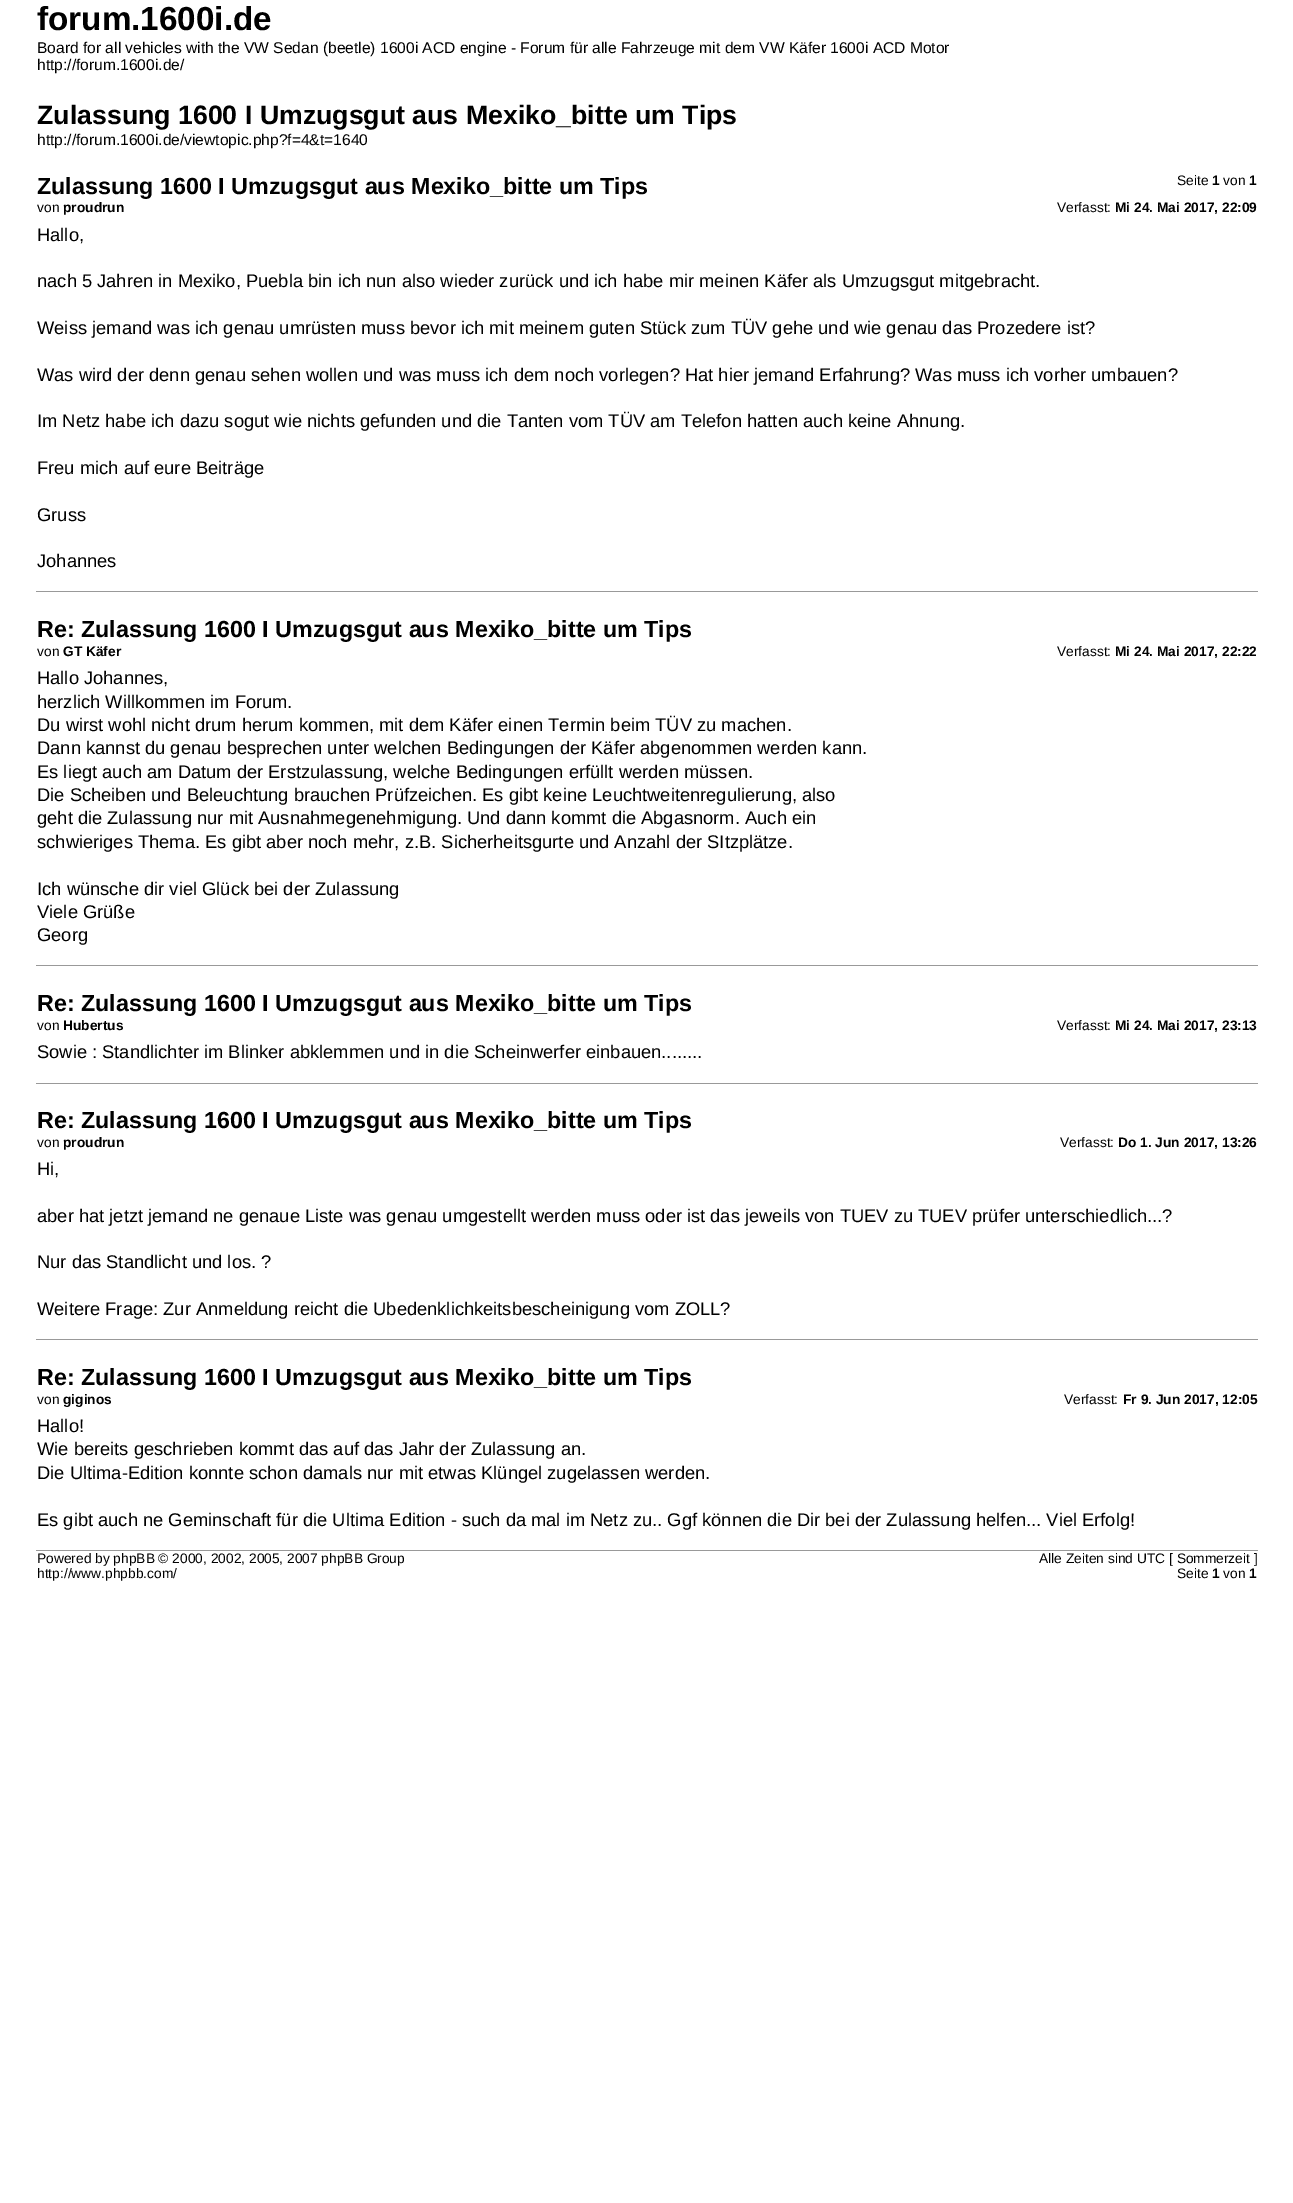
%!PS
<< /PageSize [1293 2203] >> setpagedevice
/rgb { 3 { 255 div 3 1 roll } repeat setrgbcolor } def
/font { [ exch dup neg 0 0 3 -1 roll 0 0 ] selectfont } def
0 2203 translate 1 -1 scale
4 setmiterlimit
255 255 255 rgb
0 0 1293 2203 rectfill
[
  [36 591 1222 1 153 153 153]
  [36 965 1222 1 153 153 153]
  [36 1083 1222 1 153 153 153]
  [36 1339 1222 1 153 153 153]
  [36 1550 1222 1 153 153 153]
] { aload pop rgb rectfill } forall
/LiberationSans-Bold 33.25 font
0 0 0 rgb
37 30 moveto (forum.1600i.de) show
/LiberationSans-Regular 15.58 font
37 53 moveto (Board for all vehicles with the VW Sedan \(beetle\) 1600i ACD engine - Forum für alle Fahrzeuge mit dem VW Käfer 1600i ACD Motor) show
37 70 moveto (http://forum.1600i.de/) show
/LiberationSans-Bold 26.7 font
37 124 moveto (Zulassung 1600 I Umzugsgut aus Mexiko_bitte um Tips) show
/LiberationSans-Regular 15.58 font
37 145 moveto (http://forum.1600i.de/viewtopic.php?f=4&t=1640) show
/LiberationSans-Regular 13.75 font
1177 185 moveto (Seite) show
/LiberationSans-Bold 13.75 font
1212 185 moveto (1) show
/LiberationSans-Regular 13.75 font
1223 185 moveto (von) show
/LiberationSans-Bold 13.75 font
1249 185 moveto (1) show
/LiberationSans-Bold 23.3 font
37 194 moveto (Zulassung 1600 I Umzugsgut aus Mexiko_bitte um Tips) show
/LiberationSans-Regular 13.75 font
37 212 moveto (von) show
/LiberationSans-Bold 13.75 font
63 212 moveto (proudrun) show
/LiberationSans-Regular 13.75 font
1057 212 moveto (Verfasst:) show
/LiberationSans-Bold 13.75 font
1115 212 moveto (Mi 24. Mai 2017, 22:09) show
/LiberationSans-Regular 18.33 font
[
  [(Hallo,) 37 241]
  [(nach 5 Jahren in Mexiko, Puebla bin ich nun also wieder zurück und ich habe mir meinen Käfer als Umzugsgut mitgebracht.) 37 287]
  [(Weiss jemand was ich genau umrüsten muss bevor ich mit meinem guten Stück zum TÜV gehe und wie genau das Prozedere ist?) 37 334]
  [(Was wird der denn genau sehen wollen und was muss ich dem noch vorlegen? Hat hier jemand Erfahrung? Was muss ich vorher umbauen?) 37 381]
  [(Im Netz habe ich dazu sogut wie nichts gefunden und die Tanten vom TÜV am Telefon hatten auch keine Ahnung.) 37 427]
  [(Freu mich auf eure Beiträge) 37 474]
  [(Gruss) 37 521]
  [(Johannes) 37 567]
] { aload pop moveto show } forall
/LiberationSans-Bold 23.3 font
37 637 moveto (Re: Zulassung 1600 I Umzugsgut aus Mexiko_bitte um Tips) show
/LiberationSans-Regular 13.75 font
37 656 moveto (von) show
/LiberationSans-Bold 13.75 font
63 656 moveto (GT Käfer) show
/LiberationSans-Regular 13.75 font
1057 656 moveto (Verfasst:) show
/LiberationSans-Bold 13.75 font
1115 656 moveto (Mi 24. Mai 2017, 22:22) show
/LiberationSans-Regular 18.33 font
[
  [(Hallo Johannes,) 37 684]
  [(herzlich Willkommen im Forum.) 37 708]
  [(Du wirst wohl nicht drum herum kommen, mit dem Käfer einen Termin beim TÜV zu machen.) 37 731]
  [(Dann kannst du genau besprechen unter welchen Bedingungen der Käfer abgenommen werden kann.) 37 754]
  [(Es liegt auch am Datum der Erstzulassung, welche Bedingungen erfüllt werden müssen.) 37 778]
  [(Die Scheiben und Beleuchtung brauchen Prüfzeichen. Es gibt keine Leuchtweitenregulierung, also) 37 801]
  [(geht die Zulassung nur mit Ausnahmegenehmigung. Und dann kommt die Abgasnorm. Auch ein) 37 824]
  [(schwieriges Thema. Es gibt aber noch mehr, z.B. Sicherheitsgurte und Anzahl der SItzplätze.) 37 848]
  [(Ich wünsche dir viel Glück bei der Zulassung) 37 895]
  [(Viele Grüße) 37 918]
  [(Georg) 37 941]
] { aload pop moveto show } forall
/LiberationSans-Bold 23.3 font
37 1011 moveto (Re: Zulassung 1600 I Umzugsgut aus Mexiko_bitte um Tips) show
/LiberationSans-Regular 13.75 font
37 1030 moveto (von) show
/LiberationSans-Bold 13.75 font
63 1030 moveto (Hubertus) show
/LiberationSans-Regular 13.75 font
1057 1030 moveto (Verfasst:) show
/LiberationSans-Bold 13.75 font
1115 1030 moveto (Mi 24. Mai 2017, 23:13) show
/LiberationSans-Regular 18.33 font
37 1058 moveto (Sowie : Standlichter im Blinker abklemmen und in die Scheinwerfer einbauen........) show
/LiberationSans-Bold 23.3 font
37 1128 moveto (Re: Zulassung 1600 I Umzugsgut aus Mexiko_bitte um Tips) show
/LiberationSans-Regular 13.75 font
37 1147 moveto (von) show
/LiberationSans-Bold 13.75 font
63 1147 moveto (proudrun) show
/LiberationSans-Regular 13.75 font
1060 1147 moveto (Verfasst:) show
/LiberationSans-Bold 13.75 font
1118 1147 moveto (Do 1. Jun 2017, 13:26) show
/LiberationSans-Regular 18.33 font
[
  [(Hi,) 37 1175]
  [(aber hat jetzt jemand ne genaue Liste was genau umgestellt werden muss oder ist das jeweils von TUEV zu TUEV prüfer unterschiedlich...?) 37 1222]
  [(Nur das Standlicht und los. ?) 37 1268]
  [(Weitere Frage: Zur Anmeldung reicht die Ubedenklichkeitsbescheinigung vom ZOLL?) 37 1315]
] { aload pop moveto show } forall
/LiberationSans-Bold 23.3 font
37 1385 moveto (Re: Zulassung 1600 I Umzugsgut aus Mexiko_bitte um Tips) show
/LiberationSans-Regular 13.75 font
37 1404 moveto (von) show
/LiberationSans-Bold 13.75 font
63 1404 moveto (giginos) show
/LiberationSans-Regular 13.75 font
1064 1404 moveto (Verfasst:) show
/LiberationSans-Bold 13.75 font
1123 1404 moveto (Fr 9. Jun 2017, 12:05) show
/LiberationSans-Regular 18.33 font
[
  [(Hallo!) 37 1432]
  [(Wie bereits geschrieben kommt das auf das Jahr der Zulassung an.) 37 1455]
  [(Die Ultima-Edition konnte schon damals nur mit etwas Klüngel zugelassen werden.) 37 1479]
  [(Es gibt auch ne Geminschaft für die Ultima Edition - such da mal im Netz zu.. Ggf können die Dir bei der Zulassung helfen... Viel Erfolg!) 37 1526]
] { aload pop moveto show } forall
/LiberationSans-Regular 13.75 font
[
  [(Powered by phpBB © 2000, 2002, 2005, 2007 phpBB Group) 37 1563]
  [(http://www.phpbb.com/) 37 1578]
  [(Alle Zeiten sind UTC [ Sommerzeit ]) 1039 1563]
  [(Seite) 1177 1578]
] { aload pop moveto show } forall
/LiberationSans-Bold 13.75 font
1212 1578 moveto (1) show
/LiberationSans-Regular 13.75 font
1223 1578 moveto (von) show
/LiberationSans-Bold 13.75 font
1249 1578 moveto (1) show
showpage
